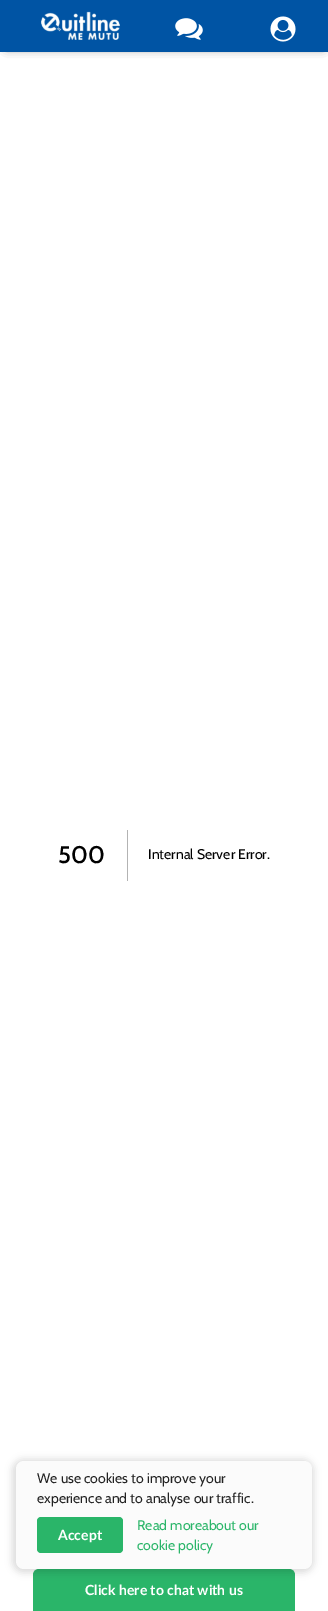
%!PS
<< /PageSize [328 1611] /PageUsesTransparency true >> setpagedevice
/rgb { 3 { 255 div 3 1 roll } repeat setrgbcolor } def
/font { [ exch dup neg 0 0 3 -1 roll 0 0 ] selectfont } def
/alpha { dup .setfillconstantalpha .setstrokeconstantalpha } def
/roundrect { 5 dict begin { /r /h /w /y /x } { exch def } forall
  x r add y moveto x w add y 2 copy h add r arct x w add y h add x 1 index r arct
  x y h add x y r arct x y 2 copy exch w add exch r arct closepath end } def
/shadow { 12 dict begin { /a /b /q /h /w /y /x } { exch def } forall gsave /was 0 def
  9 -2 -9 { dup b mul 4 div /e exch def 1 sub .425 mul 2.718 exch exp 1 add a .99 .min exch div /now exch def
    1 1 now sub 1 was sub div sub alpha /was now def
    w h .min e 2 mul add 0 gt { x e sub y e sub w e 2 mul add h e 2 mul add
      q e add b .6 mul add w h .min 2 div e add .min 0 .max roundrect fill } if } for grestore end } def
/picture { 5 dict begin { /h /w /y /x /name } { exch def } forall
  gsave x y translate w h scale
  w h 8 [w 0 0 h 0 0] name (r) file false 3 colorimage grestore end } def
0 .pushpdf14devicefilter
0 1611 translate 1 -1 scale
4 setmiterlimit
255 255 255 rgb
0 0 328 1611 rectfill
43 43 43 rgb
7 7 316 40 0 5 1 shadow
0 84 164 rgb
0 0 328 52 rectfill
(img/1.rgb) 41 11 79 29 picture
(img/2.rgb) 175 18 28 22 picture
(img/3.rgb) 270 16 26 26 picture
179 179 179 rgb
127 830 1 51 rectfill
42 181 105 rgb
39 1569 moveto 289 1569 lineto 292.5 1569 295 1571.5 295 1575 curveto 295 1611 lineto 33 1611 lineto 33 1575 lineto 33 1571.5 35.5 1569 39 1569 curveto closepath fill
0 0 0 rgb
12 1459 302 114 11 3.5 0.12 shadow
251 251 251 rgb
16 1461 296 108 8 roundrect fill
42 181 105 rgb
37 1517 86 36 4 roundrect fill
/Cabin-Medium 24 font
0 0 0 rgb
58 863 moveto (500) show
/Cabin-Regular 14 font
148 859 moveto (Internal Server Error.) show
/Lato-Bold 14 font
255 255 255 rgb
85 1595 moveto (Click here to chat with us) show
/Cabin-Regular 14 font
34 34 34 rgb
37 1483 moveto (We use cookies to improve your) show
37 1503 moveto (experience and to analyse our traffic.) show
/Lato-Bold 14 font
255 255 255 rgb
58 1540 moveto (Accept) show
/Cabin-Regular 14 font
42 181 105 rgb
137 1530 moveto (Read moreabout our) show
137 1550 moveto (cookie policy) show
.poppdf14devicefilter showpage
